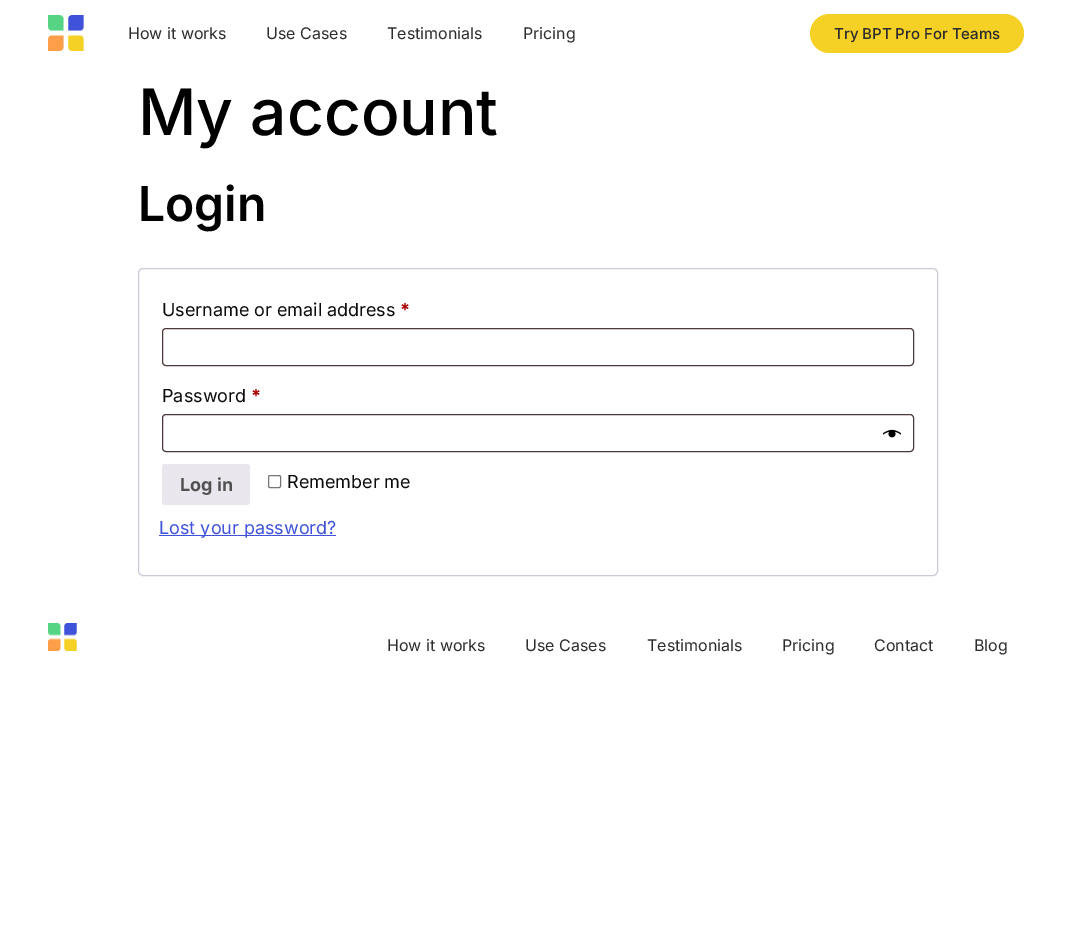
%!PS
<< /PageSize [1075 935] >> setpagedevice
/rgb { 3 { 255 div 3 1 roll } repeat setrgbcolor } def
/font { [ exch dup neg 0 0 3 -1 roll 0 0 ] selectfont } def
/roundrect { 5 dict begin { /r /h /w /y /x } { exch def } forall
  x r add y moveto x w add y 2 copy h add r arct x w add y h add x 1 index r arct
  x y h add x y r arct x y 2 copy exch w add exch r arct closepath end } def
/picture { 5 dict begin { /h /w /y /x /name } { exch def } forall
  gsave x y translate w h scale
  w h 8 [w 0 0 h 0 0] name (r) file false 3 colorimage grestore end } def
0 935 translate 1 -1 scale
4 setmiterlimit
255 255 255 rgb
0 0 1075 935 rectfill
(img/1.rgb) 48 15 36 36 picture
245 209 38 rgb
810 14 214 39 19.5 roundrect fill
207 200 216 rgb
138.5 268.5 799 307 4.5 roundrect stroke
77 57 57 rgb
162.5 328.5 751 37 3.5 roundrect stroke
162.5 414.5 751 37 3.5 roundrect stroke
(img/2.rgb) 883 429 18 9 picture
233 230 237 rgb
162 464 88 41 3 roundrect fill
118 118 118 rgb
268.5 475.5 12 12 1.5 roundrect stroke
63 82 217 rgb
159 535 177 1 rectfill
(img/3.rgb) 48 623 29 28 picture
/Inter-Regular 16 font
45 45 45 rgb
[
  [(How it works) 128 39]
  [(Use Cases) 266 39]
  [(Testimonials) 387 39]
  [(Pricing) 523 39]
] { aload pop moveto show } forall
/Inter-Medium 15 font
834 39 moveto (Try BPT Pro For Teams) show
/Inter-Medium 64 font
0 0 0 rgb
138 135 moveto (My account) show
/Inter-SemiBold 48 font
138 221 moveto (Login) show
/Inter-Regular 18 font
12 12 12 rgb
162 316 moveto (Username or email address) show
/Inter-Bold 18 font
170 0 0 rgb
400 316 moveto (*) show
/Inter-Regular 18 font
12 12 12 rgb
162 402 moveto (Password) show
/Inter-Bold 18 font
170 0 0 rgb
251 402 moveto (*) show
81 81 81 rgb
180 491 moveto (Log in) show
/Inter-Regular 18 font
12 12 12 rgb
287 488 moveto (Remember me) show
63 82 217 rgb
159 534 moveto (Lost your password?) show
/Inter-Regular 16 font
45 45 45 rgb
[
  [(How it works) 387 651]
  [(Use Cases) 525 651]
  [(Testimonials) 647 651]
  [(Pricing) 782 651]
  [(Contact) 874 651]
  [(Blog) 974 651]
] { aload pop moveto show } forall
showpage
